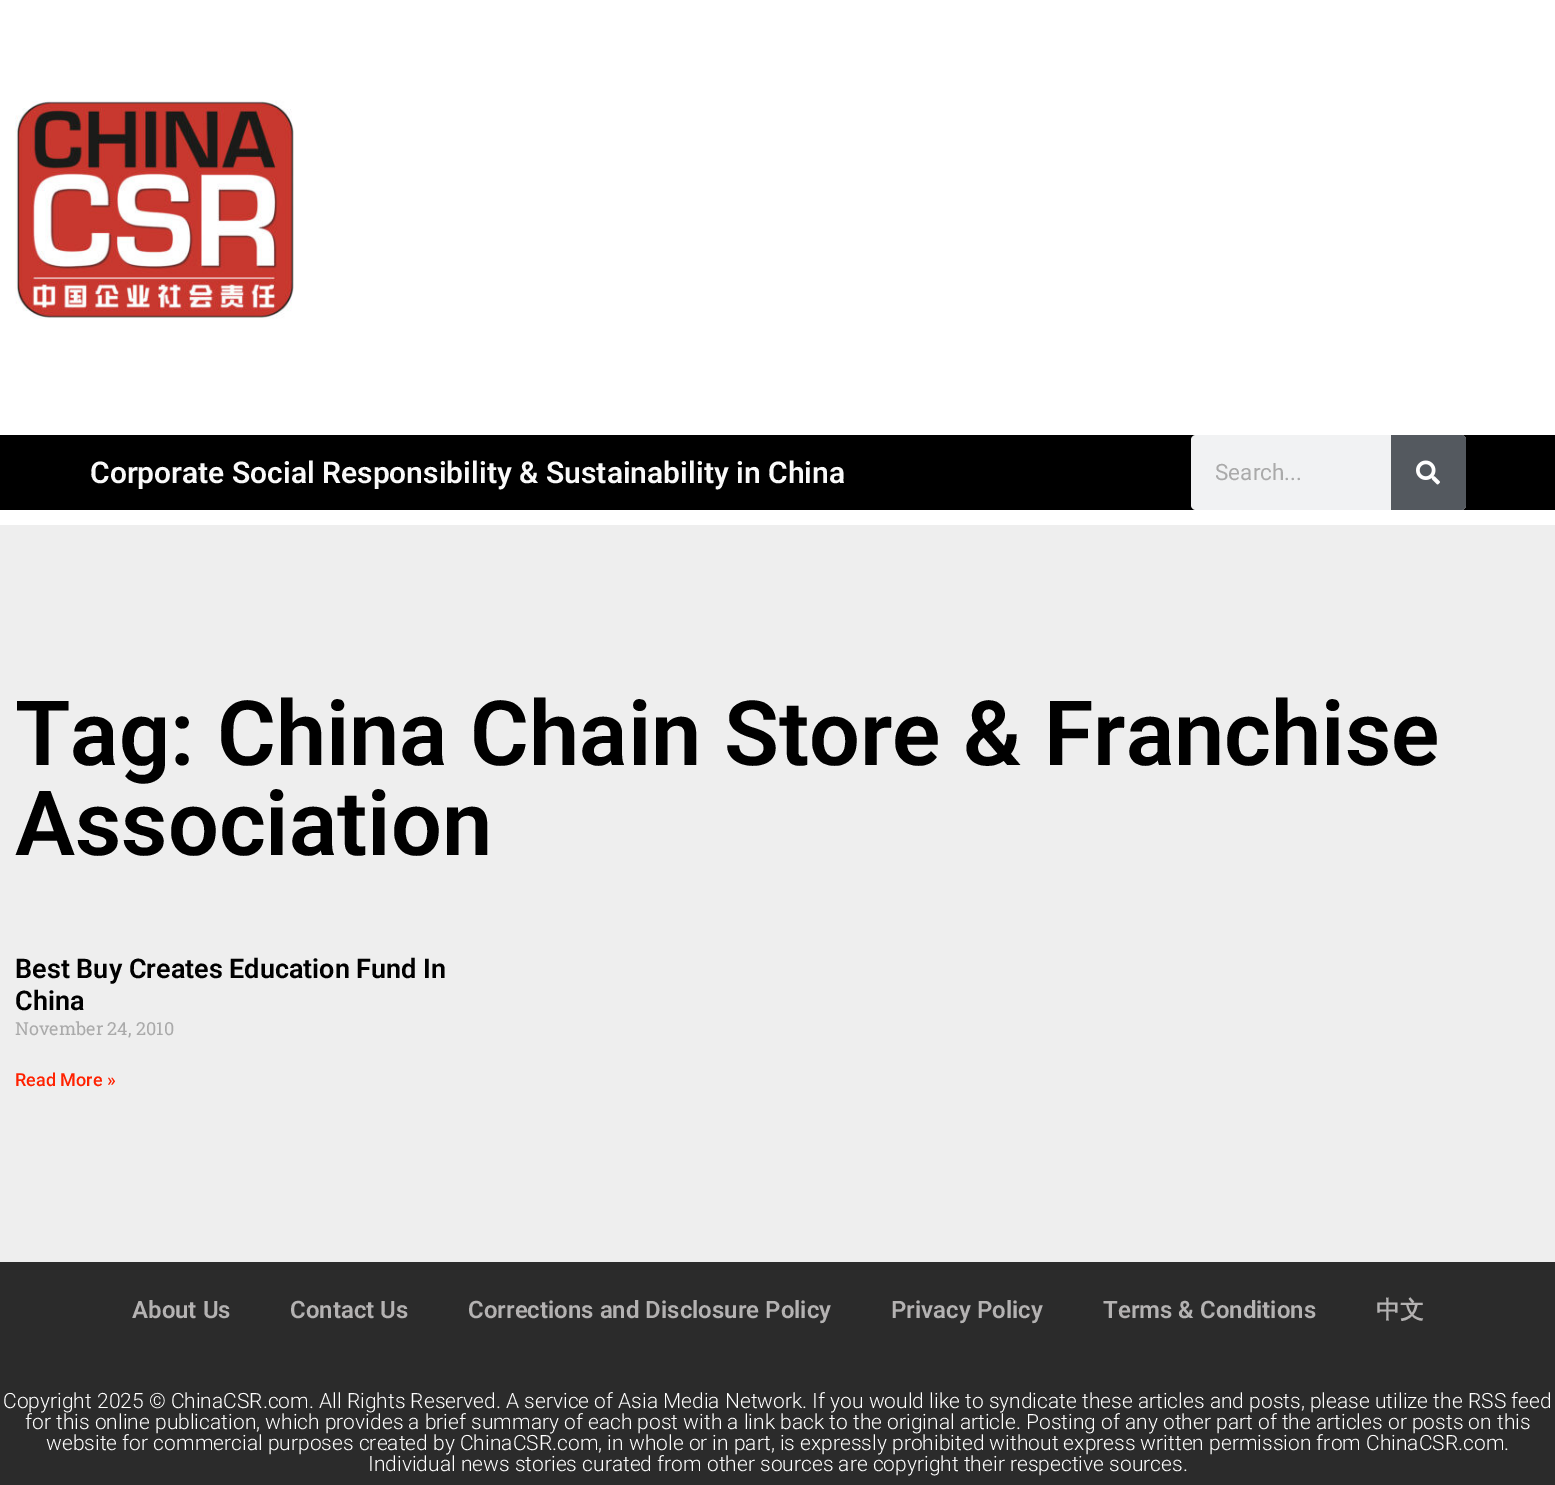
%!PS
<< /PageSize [1555 1485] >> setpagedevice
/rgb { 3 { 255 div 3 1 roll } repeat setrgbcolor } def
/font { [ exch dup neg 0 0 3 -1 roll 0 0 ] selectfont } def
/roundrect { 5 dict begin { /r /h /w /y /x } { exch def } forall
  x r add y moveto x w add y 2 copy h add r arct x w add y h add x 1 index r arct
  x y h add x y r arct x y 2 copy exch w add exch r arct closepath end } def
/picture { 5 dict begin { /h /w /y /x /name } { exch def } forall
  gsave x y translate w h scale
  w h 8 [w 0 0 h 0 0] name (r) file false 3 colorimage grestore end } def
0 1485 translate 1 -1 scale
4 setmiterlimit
255 255 255 rgb
0 0 1555 1485 rectfill
(img/1.rgb) 15 100 279 219 picture
0 0 0 rgb
0 435 1555 75 rectfill
241 242 243 rgb
1191 435 275 75 5 roundrect fill
84 89 95 rgb
1391 435 moveto 1461 435 lineto 1464 435 1466 437 1466 440 curveto 1466 505 lineto 1466 508 1464 510 1461 510 curveto 1391 510 lineto closepath fill
(img/2.rgb) 1416 460 24 25 picture
238 238 238 rgb
0 525 1555 737 rectfill
43 43 43 rgb
0 1262 1555 223 rectfill
/Roboto-SemiBold 30 font
249 249 249 rgb
90 483 moveto (Corporate Social Responsibility & Sustainability in China) show
/Roboto-Regular 22.5 font
170 170 170 rgb
1215 480 moveto (Search...) show
/Roboto-SemiBold 90 font
0 0 0 rgb
15 765 moveto (Tag: China Chain Store & Franchise) show
15 855 moveto (Association) show
/Roboto-SemiBold 27 font
15 978 moveto (Best Buy Creates Education Fund In) show
15 1010 moveto (China) show
/RobotoSlab-Regular 18 font
170 170 170 rgb
15 1035 moveto (November 24, 2010) show
/Roboto-Medium 18 font
255 33 0 rgb
15 1086 moveto (Read More ») show
/Roboto-SemiBold 24 font
180 178 178 rgb
[
  [(About Us) 132 1318]
  [(Contact Us) 290 1318]
  [(Corrections and Disclosure Policy) 468 1318]
  [(Privacy Policy) 891 1318]
  [(Terms & Conditions) 1103 1318]
] { aload pop moveto show } forall
/WenQuanYiZenHei-Bold 24 font
1376 1318 moveto (中文) show
/Roboto-Light 21 font
255 255 255 rgb
[
  [(Copyright 2025 © ChinaCSR.com. All Rights Reserved. A service of Asia Media Network. If you would like to syndicate these articles and posts, please utilize the RSS feed) 3 1408]
  [(for this online publication, which provides a brief summary of each post with a link back to the original article. Posting of any other part of the articles or posts on this) 25 1429]
  [(website for commercial purposes created by ChinaCSR.com, in whole or in part, is expressly prohibited without express written permission from ChinaCSR.com.) 46 1450]
  [(Individual news stories curated from other sources are copyright their respective sources.) 368 1471]
] { aload pop moveto show } forall
showpage
